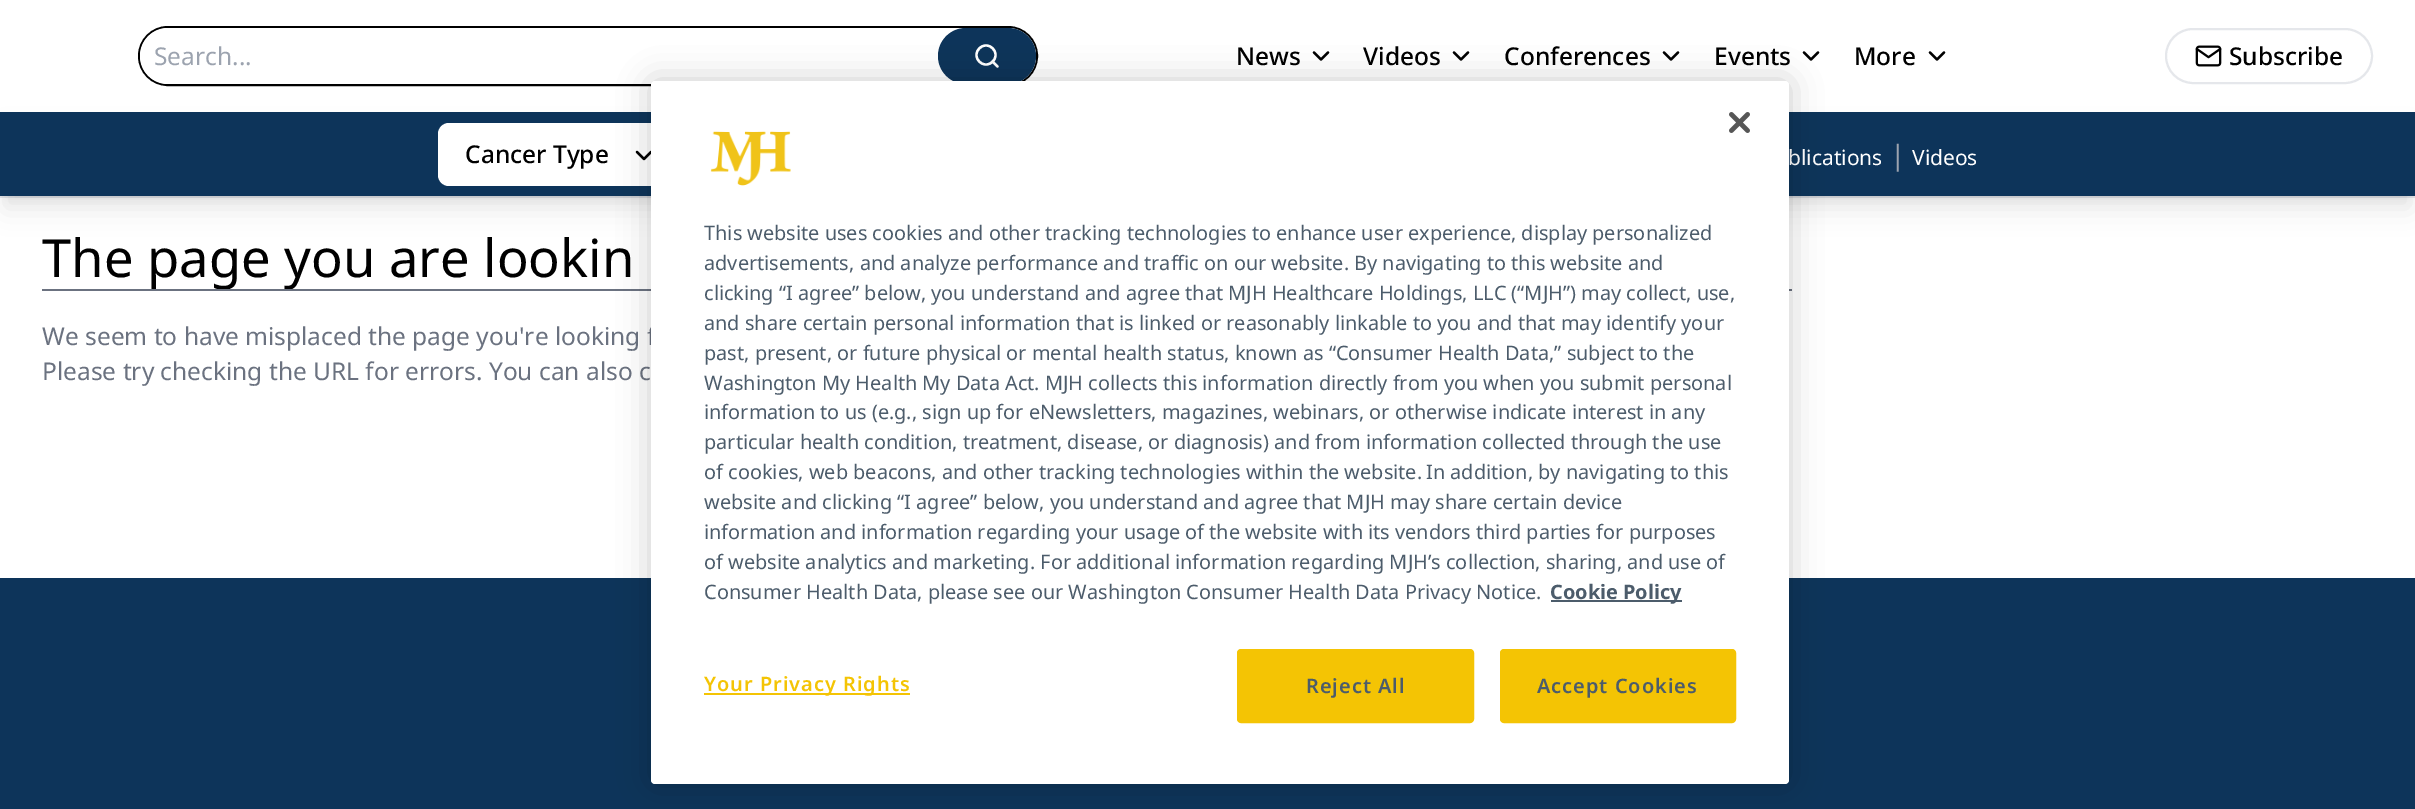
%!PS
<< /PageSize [2415 809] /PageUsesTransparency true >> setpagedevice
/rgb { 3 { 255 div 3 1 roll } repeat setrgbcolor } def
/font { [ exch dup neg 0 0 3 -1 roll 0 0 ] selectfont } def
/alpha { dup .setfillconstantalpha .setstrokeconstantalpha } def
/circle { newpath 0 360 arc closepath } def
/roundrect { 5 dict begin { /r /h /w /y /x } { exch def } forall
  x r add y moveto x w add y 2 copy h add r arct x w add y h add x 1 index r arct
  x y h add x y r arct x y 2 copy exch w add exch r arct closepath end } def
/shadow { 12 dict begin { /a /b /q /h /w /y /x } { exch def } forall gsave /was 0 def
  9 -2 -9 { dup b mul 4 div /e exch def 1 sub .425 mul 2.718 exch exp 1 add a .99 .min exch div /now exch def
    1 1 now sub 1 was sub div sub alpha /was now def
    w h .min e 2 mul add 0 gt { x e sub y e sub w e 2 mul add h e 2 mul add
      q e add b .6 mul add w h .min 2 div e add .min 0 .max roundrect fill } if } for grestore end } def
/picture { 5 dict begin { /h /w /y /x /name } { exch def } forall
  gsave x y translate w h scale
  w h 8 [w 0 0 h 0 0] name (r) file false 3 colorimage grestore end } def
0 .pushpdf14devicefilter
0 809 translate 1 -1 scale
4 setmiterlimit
255 255 255 rgb
0 0 2415 809 rectfill
229 231 235 rgb
0 196 2415 2 rectfill
0 0 0 rgb
2 setlinewidth
139 27 898 58 29 roundrect stroke
255 255 255 rgb
140 28 896 56 28 roundrect fill
13 52 90 rgb
938 28 98 56 28 roundrect fill
255 255 255 rgb
2.3 setlinewidth
986 55 9.5 circle stroke
1 setlinecap
1 setlinejoin
997.5 66.5 moveto 992.5 61.5 lineto stroke
0 0 0 rgb
1314 52.5 moveto 1321 59.5 lineto 1328 52.5 lineto stroke
1454 52.5 moveto 1461 59.5 lineto 1468 52.5 lineto stroke
1664 52.5 moveto 1671 59.5 lineto 1678 52.5 lineto stroke
1804 52.5 moveto 1811 59.5 lineto 1818 52.5 lineto stroke
1930 52.5 moveto 1937 59.5 lineto 1944 52.5 lineto stroke
229 231 235 rgb
2 setlinewidth
0 setlinecap
0 setlinejoin
2166 29 206 54 27 roundrect stroke
(img/1.rgb) 2195 45 27 22 picture
0 0 0 rgb
7 126 2401 70 0 5 0.1 shadow
5 135 2405 73 0 13 0.1 shadow
13 52 90 rgb
0 112 2415 84 rectfill
255 255 255 rgb
438 123 248 63 11 roundrect fill
0 0 0 rgb
2.3 setlinewidth
1 setlinecap
1 setlinejoin
637 152 moveto 644 159 lineto 651 152 lineto stroke
13 52 90 rgb
0 578 2415 231 rectfill
/NotoSans-Regular 24.5 font
156 163 175 rgb
154 65 moveto (Search...) show
/NotoSans-Medium 24.5 font
0 0 0 rgb
[
  [(News) 1236 65]
  [(Videos) 1363 65]
  [(Conferences) 1504 65]
  [(Events) 1714 65]
  [(More) 1854 65]
  [(Subscribe) 2229 65]
  [(Cancer Type) 465 163]
] { aload pop moveto show } forall
/NotoSans-Regular 21 font
255 255 255 rgb
1788 165 moveto (blications) show
/NotoSans-Regular 28 font
156 163 175 rgb
1890 165 moveto (|) show
/NotoSans-Regular 21 font
255 255 255 rgb
1912 165 moveto (Videos) show
/NotoSans-Regular 52.5 font
0 0 0 rgb
42 277 moveto (The page you are lookin) show
107 114 128 rgb
42 289 1750 2 rectfill
/NotoSans-Regular 24.5 font
42 345 moveto (We seem to have misplaced the page you're looking f) show
42 380 moveto (Please try checking the URL for errors. You can also c) show
0 0 0 rgb
651 81 1138 703 4 16 0.2 shadow
255 255 255 rgb
651 81 1138 703 4 roundrect fill
(img/2.rgb) 1729 112 21 21 picture
(img/3.rgb) 710 131 81 55 picture
/NotoSans-Regular 19.92 font
76 92 107 rgb
[
  [(This website uses cookies and other tracking technologies to enhance user experience, display personalized) 704 240]
  [(advertisements, and analyze performance and traffic on our website. By navigating to this website and) 704 270]
  [(clicking “I agree” below, you understand and agree that MJH Healthcare Holdings, LLC \(“MJH”\) may collect, use,) 704 300]
  [(and share certain personal information that is linked or reasonably linkable to you and that may identify your) 704 330]
  [(past, present, or future physical or mental health status, known as “Consumer Health Data,” subject to the) 704 360]
  [(Washington My Health My Data Act. MJH collects this information directly from you when you submit personal) 704 390]
  [(information to us \(e.g., sign up for eNewsletters, magazines, webinars, or otherwise indicate interest in any) 704 419]
  [(particular health condition, treatment, disease, or diagnosis\) and from information collected through the use) 704 449]
  [(of cookies, web beacons, and other tracking technologies within the website.) 704 479]
  [(In addition, by navigating to this) 1426 479]
  [(website and clicking “I agree” below, you understand and agree that MJH may share certain device) 704 509]
  [(information and information regarding your usage of the website with its vendors third parties for purposes) 704 539]
  [(of website analytics and marketing. For additional information regarding MJH’s collection, sharing, and use of) 704 569]
  [(Consumer Health Data, please see our Washington Consumer Health Data Privacy Notice.) 704 599]
] { aload pop moveto show } forall
1551 600 131 2 rectfill
/NotoSans-Bold 19.92 font
1550 599 moveto (Cookie Policy) show
244 196 4 rgb
704 693 206 2 rectfill
/NotoSans-SemiBold 19.92 font
704 691 moveto 1 0 (Your Privacy Rights) ashow
1238 650 235 72 3 roundrect gsave fill grestore
2 setlinewidth
0 setlinecap
0 setlinejoin
stroke
76 92 107 rgb
1306 693 moveto 1 0 (Reject All) ashow
244 196 4 rgb
1501 650 234 72 3 roundrect gsave fill grestore
stroke
76 92 107 rgb
1537 693 moveto 1 0 (Accept Cookies) ashow
.poppdf14devicefilter showpage
